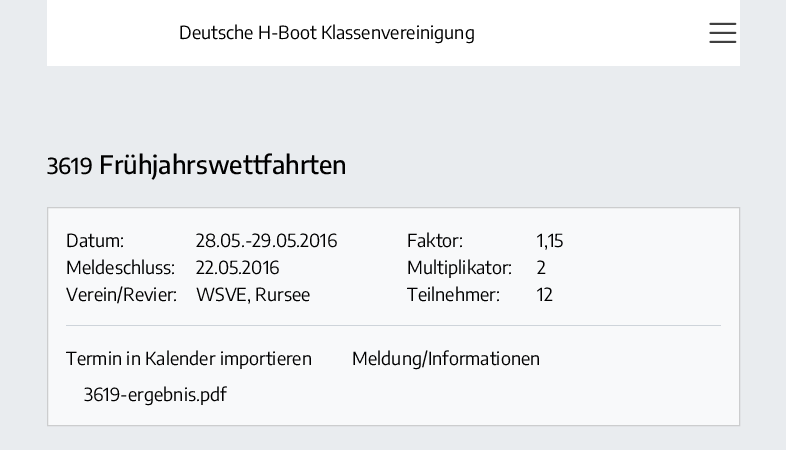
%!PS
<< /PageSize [786 450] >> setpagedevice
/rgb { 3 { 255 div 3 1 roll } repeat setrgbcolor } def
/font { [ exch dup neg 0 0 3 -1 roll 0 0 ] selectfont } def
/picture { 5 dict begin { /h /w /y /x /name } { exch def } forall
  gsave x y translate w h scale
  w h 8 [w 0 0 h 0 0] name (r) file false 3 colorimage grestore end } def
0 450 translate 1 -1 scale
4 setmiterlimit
233 236 239 rgb
0 0 786 450 rectfill
255 255 255 rgb
47 0 693 66 rectfill
(img/1.rgb) 709 22 28 21 picture
248 249 250 rgb
47.5 207.5 moveto 739.5 207.5 lineto 739.5 425.5 lineto 47.5 425.5 lineto closepath gsave fill grestore
204 205 206 rgb
stroke
206 212 218 rgb
66 325 655 1 rectfill
/EncodeSans-Regular 18 font
0 0 0 rgb
179 39 moveto (Deutsche H-Boot Klassenvereinigung) show
/EncodeSans-Medium 22 font
47 174 moveto (3619) show
/EncodeSans-Medium 25.25 font
99 174 moveto (Frühjahrswettfahrten) show
/EncodeSans-Regular 18 font
[
  [(Datum:) 66 247]
  [(28.05.-29.05.2016) 196 247]
  [(Meldeschluss:) 66 274]
  [(22.05.2016) 196 274]
  [(Verein/Revier:) 66 301]
  [(WSVE, Rursee) 196 301]
  [(Faktor:) 407 247]
  [(1,15) 537 247]
  [(Multiplikator:) 407 274]
  [(2) 537 274]
  [(Teilnehmer:) 407 301]
  [(12) 537 301]
  [(Termin in Kalender importieren) 66 365]
  [(Meldung/Informationen) 352 365]
  [(3619-ergebnis.pdf) 84 401]
] { aload pop moveto show } forall
showpage
